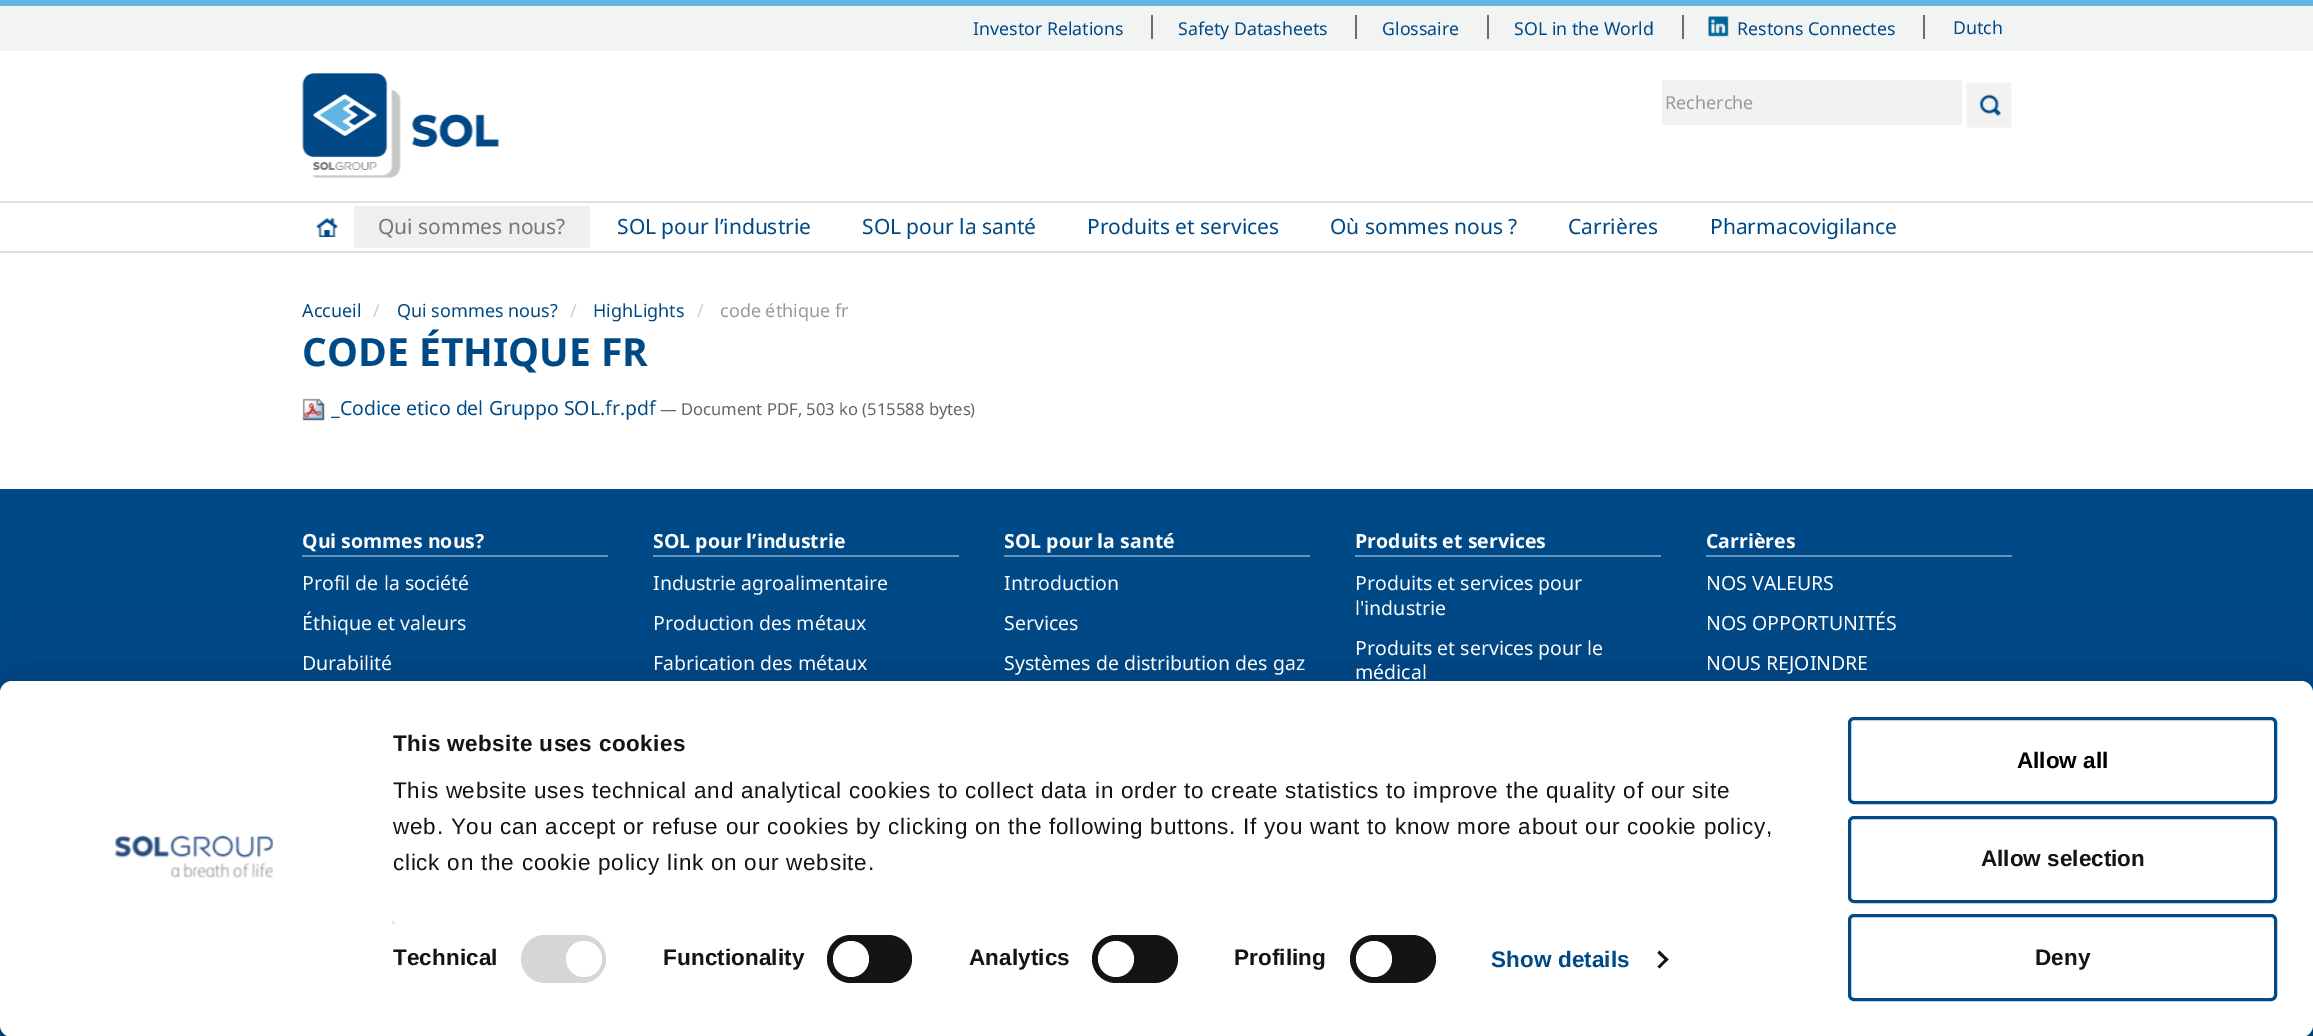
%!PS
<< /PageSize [2313 1036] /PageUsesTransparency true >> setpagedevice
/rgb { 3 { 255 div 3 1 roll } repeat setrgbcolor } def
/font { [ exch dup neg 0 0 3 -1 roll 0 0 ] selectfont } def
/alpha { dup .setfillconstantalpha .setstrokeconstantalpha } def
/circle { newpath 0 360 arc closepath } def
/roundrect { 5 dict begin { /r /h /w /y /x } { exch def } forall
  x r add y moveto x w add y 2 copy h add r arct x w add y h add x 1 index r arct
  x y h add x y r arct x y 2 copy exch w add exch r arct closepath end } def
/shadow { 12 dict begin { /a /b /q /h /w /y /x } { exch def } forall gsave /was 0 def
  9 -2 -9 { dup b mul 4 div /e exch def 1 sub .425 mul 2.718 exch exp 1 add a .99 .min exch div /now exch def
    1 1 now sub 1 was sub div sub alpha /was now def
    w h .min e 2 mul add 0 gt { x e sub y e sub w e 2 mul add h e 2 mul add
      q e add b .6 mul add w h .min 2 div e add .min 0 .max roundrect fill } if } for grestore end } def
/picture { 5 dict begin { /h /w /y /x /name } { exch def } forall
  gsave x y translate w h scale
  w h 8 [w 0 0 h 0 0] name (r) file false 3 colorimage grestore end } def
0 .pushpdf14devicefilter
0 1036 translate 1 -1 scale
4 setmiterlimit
255 255 255 rgb
0 0 2313 1036 rectfill
(img/1.rgb) 302 73 197 105 picture
242 242 242 rgb
1662 80 300 45 rectfill
(img/2.rgb) 1966 82 46 46 picture
[
  [0 6 2313 45 242 243 243]
  [0 0 2313 6 101 182 227]
  [1151 15 2 24 107 110 112]
  [1355 15 2 24 107 110 112]
  [1487 15 2 24 107 110 112]
  [1682 15 2 24 107 110 112]
] { aload pop rgb rectfill } forall
(img/3.rgb) 1708 16 21 21 picture
[
  [1923 15 2 24 107 110 112]
  [0 201 2313 2 223 224 225]
  [0 251 2313 2 223 224 225]
] { aload pop rgb rectfill } forall
(img/4.rgb) 316 218 22 19 picture
239 239 240 rgb
354 206 236 42 rectfill
(img/5.rgb) 302 398 23 23 picture
[
  [0 489 2313 547 0 73 135]
  [302 555 306 2 102 146 183]
  [653 555 306 2 102 146 183]
  [1004 555 306 2 102 146 183]
  [1355 555 306 2 102 146 183]
  [1706 555 306 2 102 146 183]
] { aload pop rgb rectfill } forall
0 0 0 rgb
0 726 2313 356 12 52.5 0.3 shadow
255 255 255 rgb
0 681 2313 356 12 roundrect fill
(img/6.rgb) 115 835 158 43 picture
229 229 229 rgb
393.5 922.5 1.5 circle fill
214 214 214 rgb
521 935 85 48 24 roundrect fill
255 255 255 rgb
584 959 18 circle fill
20 20 20 rgb
827 935 85 48 24 roundrect fill
255 255 255 rgb
851 959 18 circle fill
20 20 20 rgb
1092 935 86 48 24 roundrect fill
255 255 255 rgb
1116 959 18 circle fill
20 20 20 rgb
1350 935 86 48 24 roundrect fill
255 255 255 rgb
1374 959 18 circle fill
20 20 20 rgb
1659.5 950.5 moveto 1668.5 959.5 lineto 1666.5 961.5 lineto 1657.5 953 lineto closepath fill
1666.5 957.5 moveto 1668.5 959.5 lineto 1659.5 968.5 lineto 1657.5 966.5 lineto closepath fill
0 75 135 rgb
3 setlinewidth
1849.5 718.5 426 84 4.5 roundrect stroke
1849.5 817.5 426 84 4.5 roundrect stroke
1849.5 915.5 426 84 4.5 roundrect stroke
/NotoSans-Regular 17.75 font
0 73 135 rgb
1953 34 moveto (Dutch) show
/NotoSans-Regular 18 font
153 153 153 rgb
1665 109 moveto (Recherche) show
/NotoSans-Regular 17.75 font
0 73 135 rgb
[
  [(Investor Relations) 973 35]
  [(Safety Datasheets) 1178 35]
  [(Glossaire) 1382 35]
  [(SOL in the World) 1514 35]
  [(Restons Connectes) 1737 35]
] { aload pop moveto show } forall
/NotoSans-Regular 21 font
119 119 119 rgb
378 234 moveto (Qui sommes nous?) show
0 73 135 rgb
[
  [(SOL pour l’industrie) 617 234]
  [(SOL pour la santé) 862 234]
  [(Produits et services) 1087 234]
  [(Où sommes nous ?) 1330 234]
  [(Carrières) 1568 234]
  [(Pharmacovigilance) 1710 234]
] { aload pop moveto show } forall
/NotoSans-Regular 18 font
302 317 moveto (Accueil) show
204 204 204 rgb
373 317 moveto (/) show
0 73 135 rgb
397 317 moveto (Qui sommes nous?) show
204 204 204 rgb
570 317 moveto (/) show
0 73 135 rgb
593 317 moveto (HighLights) show
204 204 204 rgb
697 317 moveto (/) show
153 153 153 rgb
720 317 moveto (code éthique fr) show
/NotoSans-Bold 39 font
0 73 135 rgb
302 366 moveto (CODE ÉTHIQUE FR) show
/NotoSans-Regular 19.5 font
331 415 moveto (_Codice etico del Gruppo SOL.fr.pdf) show
/NotoSans-Regular 16.6 font
102 102 102 rgb
660 415 moveto (— Document PDF, 503 ko \(515588 bytes\)) show
/NotoSans-Bold 19.5 font
255 255 255 rgb
302 548 moveto (Qui sommes nous?) show
/NotoSans-Regular 19.5 font
[
  [(Profil de la société) 302 590]
  [(Éthique et valeurs) 302 630]
  [(Durabilité) 302 670]
] { aload pop moveto show } forall
/NotoSans-Bold 19.5 font
653 548 moveto (SOL pour l’industrie) show
/NotoSans-Regular 19.5 font
[
  [(Industrie agroalimentaire) 653 590]
  [(Production des métaux) 653 630]
  [(Fabrication des métaux) 653 670]
] { aload pop moveto show } forall
/NotoSans-Bold 19.5 font
1004 548 moveto (SOL pour la santé) show
/NotoSans-Regular 19.5 font
[
  [(Introduction) 1004 590]
  [(Services) 1004 630]
  [(Systèmes de distribution des gaz) 1004 670]
] { aload pop moveto show } forall
/NotoSans-Bold 19.5 font
1355 548 moveto (Produits et services) show
/NotoSans-Regular 19.5 font
[
  [(Produits et services pour) 1355 590]
  [(l'industrie) 1355 615]
  [(Produits et services pour le) 1355 655]
  [(médical) 1355 679]
] { aload pop moveto show } forall
/NotoSans-Bold 19.5 font
1706 548 moveto (Carrières) show
/NotoSans-Regular 19.5 font
[
  [(NOS VALEURS) 1706 590]
  [(NOS OPPORTUNITÉS) 1706 630]
  [(NOUS REJOINDRE) 1706 670]
] { aload pop moveto show } forall
/LiberationSans-Bold 22.5 font
20 20 20 rgb
393 751 moveto 0.4 0 (This website uses cookies) ashow
/LiberationSans-Regular 22.5 font
393 798 moveto 0.75 0 (This website uses technical and analytical cookies to collect data in order to create statistics to improve the quality of our site) ashow
393 834 moveto 0.75 0 (web. You can accept or refuse our cookies by clicking on the following buttons. If you want to know more about our cookie policy,) ashow
393 870 moveto 0.75 0 (click on the cookie policy link on our website.) ashow
/LiberationSans-Bold 22.5 font
393 965 moveto 0.1 0 (Technical) ashow
663 965 moveto 0.1 0 (Functionality) ashow
969 965 moveto 0.1 0 (Analytics) ashow
1234 965 moveto 0.1 0 (Profiling) ashow
0 73 135 rgb
1491 967 moveto 0.1 0 (Show details) ashow
0 0 0 rgb
2017 768 moveto (Allow all) show
20 20 20 rgb
1981 866 moveto (Allow selection) show
2035 965 moveto (Deny) show
.poppdf14devicefilter showpage
